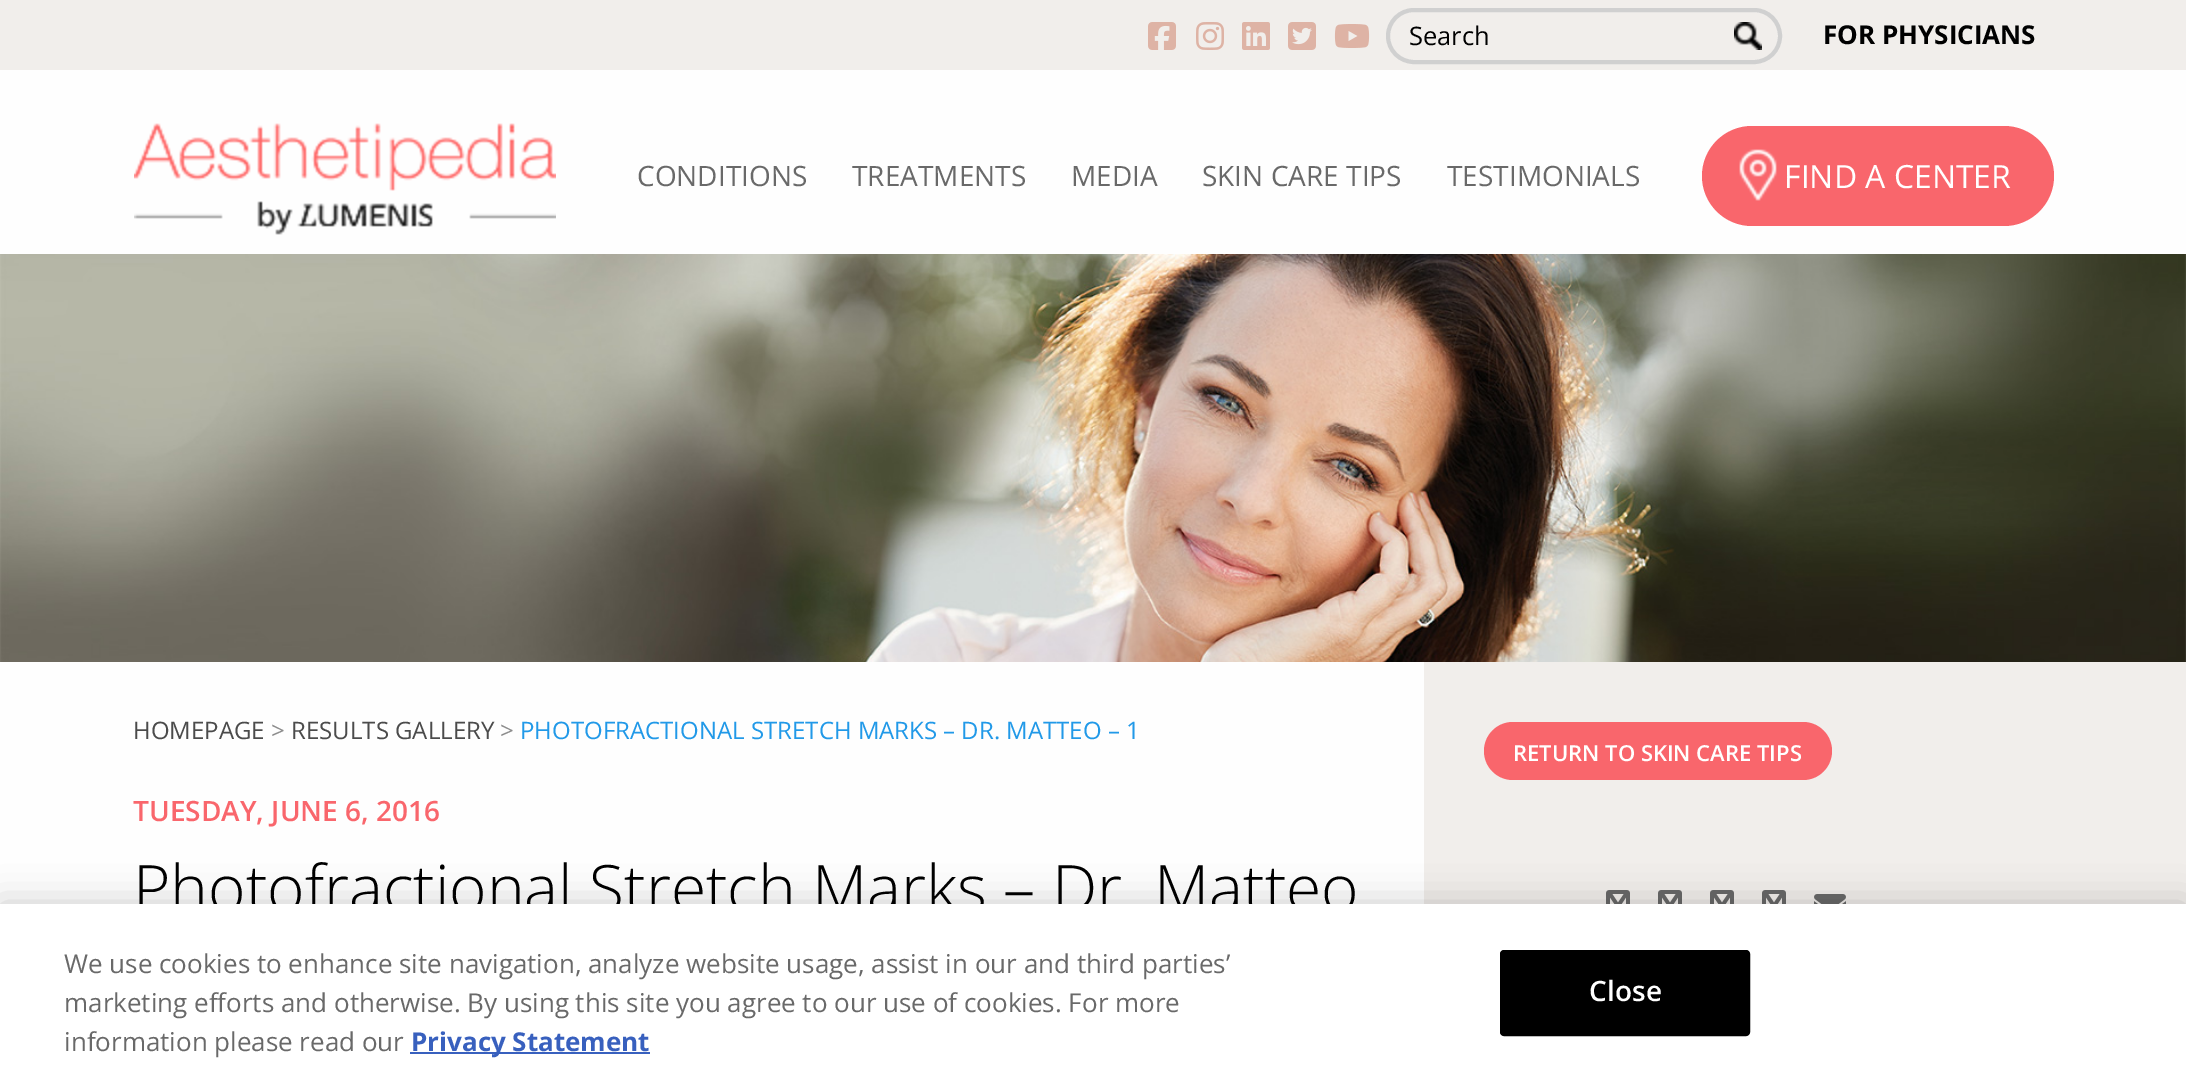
%!PS
<< /PageSize [2186 1082] /PageUsesTransparency true >> setpagedevice
/rgb { 3 { 255 div 3 1 roll } repeat setrgbcolor } def
/font { [ exch dup neg 0 0 3 -1 roll 0 0 ] selectfont } def
/alpha { dup .setfillconstantalpha .setstrokeconstantalpha } def
/roundrect { 5 dict begin { /r /h /w /y /x } { exch def } forall
  x r add y moveto x w add y 2 copy h add r arct x w add y h add x 1 index r arct
  x y h add x y r arct x y 2 copy exch w add exch r arct closepath end } def
/shadow { 12 dict begin { /a /b /q /h /w /y /x } { exch def } forall gsave /was 0 def
  9 -2 -9 { dup b mul 4 div /e exch def 1 sub .425 mul 2.718 exch exp 1 add a .99 .min exch div /now exch def
    1 1 now sub 1 was sub div sub alpha /was now def
    w h .min e 2 mul add 0 gt { x e sub y e sub w e 2 mul add h e 2 mul add
      q e add b .6 mul add w h .min 2 div e add .min 0 .max roundrect fill } if } for grestore end } def
/picture { 5 dict begin { /h /w /y /x /name } { exch def } forall
  gsave x y translate w h scale
  w h 8 [w 0 0 h 0 0] name (r) file false 3 colorimage grestore end } def
0 .pushpdf14devicefilter
0 1082 translate 1 -1 scale
4 setmiterlimit
254 254 254 rgb
0 0 2186 1082 rectfill
241 238 235 rgb
0 0 2186 70 rectfill
(img/1.rgb) 1148 22 28 28 picture
(img/2.rgb) 1196 22 28 28 picture
(img/3.rgb) 1242 22 28 28 picture
(img/4.rgb) 1288 22 28 28 picture
(img/5.rgb) 1334 24 36 24 picture
208 208 208 rgb
4 setlinewidth
1388 10 392 52 26 roundrect stroke
(img/6.rgb) 1734 22 28 28 picture
(img/7.rgb) 134 123 422 112 picture
249 102 108 rgb
1702 126 352 100 50 roundrect fill
(img/8.rgb) 1739 149 38 52 picture
(img/9.rgb) 0 254 2186 408 picture
241 238 235 rgb
1424 662 762 242 rectfill
249 102 108 rgb
1484 722 348 58 29 roundrect fill
(img/10.rgb) 1606 890 24 14 picture
(img/10.rgb) 1658 890 24 14 picture
(img/10.rgb) 1710 890 24 14 picture
(img/10.rgb) 1762 890 24 14 picture
(img/11.rgb) 1814 894 32 10 picture
0 0 0 rgb
0 904 2186 178 0 18 0.2 shadow
/OpenSans-Regular 25.5 font
1409 45 moveto (Search) show
/OpenSans-Bold 26 font
1823 44 moveto (FOR PHYSICIANS) show
/OpenSans-Regular 28 font
105 105 105 rgb
[
  [(CONDITIONS) 637 186]
  [(TREATMENTS) 852 186]
  [(MEDIA) 1071 186]
  [(SKIN CARE TIPS) 1202 186]
  [(TESTIMONIALS) 1447 186]
] { aload pop moveto show } forall
/OpenSans-Regular 32 font
255 255 255 rgb
1784 188 moveto (FIND A CENTER) show
/OpenSans-Regular 24 font
75 75 75 rgb
133 739 moveto (HOMEPAGE) show
140 140 140 rgb
271 739 moveto (>) show
75 75 75 rgb
291 739 moveto (RESULTS GALLERY) show
140 140 140 rgb
500 739 moveto (>) show
33 153 232 rgb
520 739 moveto (PHOTOFRACTIONAL STRETCH MARKS – DR. MATTEO – 1) show
/OpenSans-SemiBold 28 font
249 102 108 rgb
133 821 moveto (TUESDAY, JUNE 6, 2016) show
/OpenSans-Light 64 font
0 0 0 rgb
133 911 moveto (Photofractional Stretch Marks – Dr. Matteo) show
/OpenSans-SemiBold 22 font
255 255 255 rgb
1513 761 moveto (RETURN TO SKIN CARE TIPS) show
0 904 2186 178 rectfill
/OpenSans-Regular 26 font
105 105 105 rgb
[
  [(We use cookies to enhance site navigation, analyze website usage, assist in our and third parties’) 64 973]
  [(marketing efforts and otherwise. By using this site you agree to our use of cookies. For more) 64 1012]
  [(information please read our) 64 1051]
] { aload pop moveto show } forall
56 96 190 rgb
410 1052 240 2 rectfill
/OpenSans-Bold 26 font
411 1051 moveto (Privacy Statement) show
0 0 0 rgb
1501 951 248 84 3 roundrect gsave fill grestore
2 setlinewidth
stroke
/OpenSans-SemiBold 28 font
255 255 255 rgb
1589 1001 moveto 0.25 0 (Close) ashow
.poppdf14devicefilter showpage
